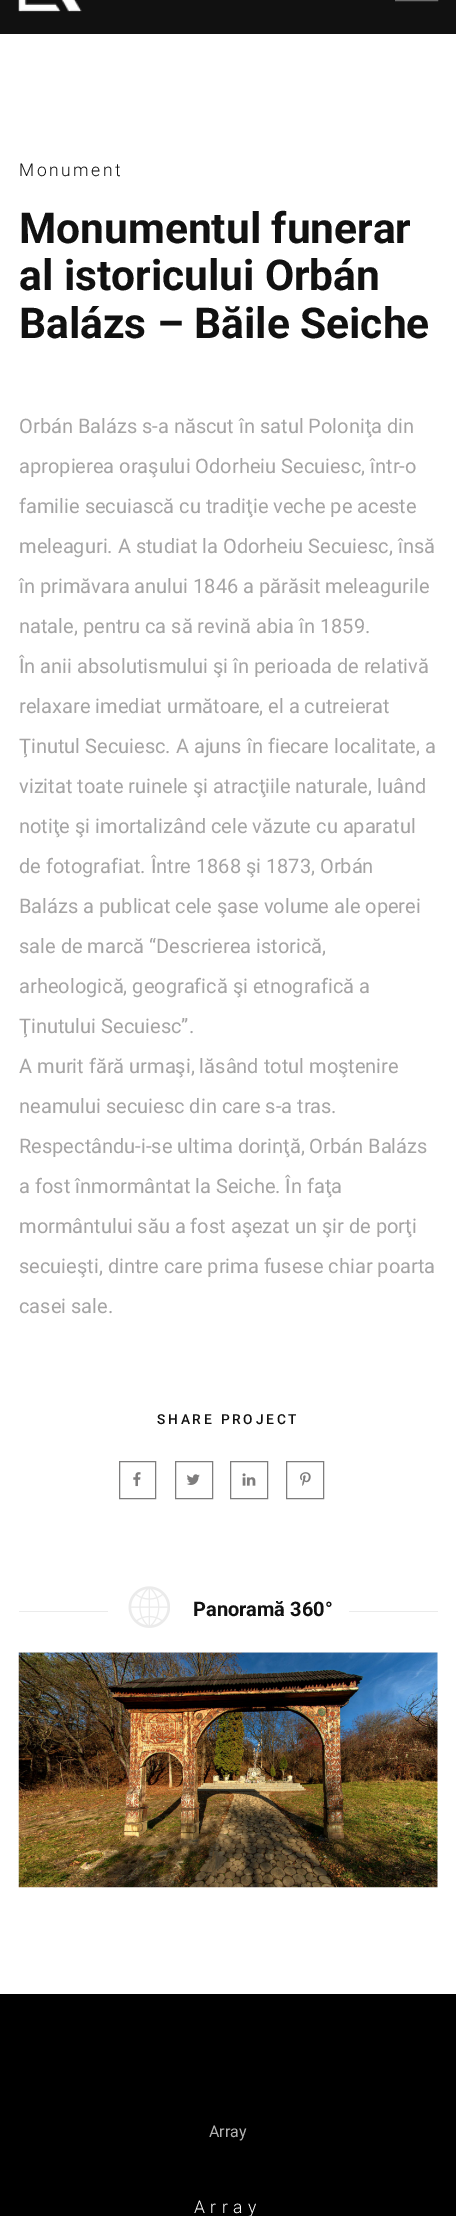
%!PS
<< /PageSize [456 2216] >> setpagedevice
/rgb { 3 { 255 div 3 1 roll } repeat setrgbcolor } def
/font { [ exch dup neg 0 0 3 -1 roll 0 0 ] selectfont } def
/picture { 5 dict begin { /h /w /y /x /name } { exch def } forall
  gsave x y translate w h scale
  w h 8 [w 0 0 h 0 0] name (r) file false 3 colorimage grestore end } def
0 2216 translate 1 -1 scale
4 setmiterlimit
255 255 255 rgb
0 0 456 2216 rectfill
17 17 17 rgb
0 0 456 34 rectfill
(img/1.rgb) 18 0 64 12 picture
107 107 107 rgb
395.5 -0.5 42 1 rectstroke
126 125 125 rgb
119.5 1461.5 36 37 rectstroke
(img/2.rgb) 133 1472 8 15 picture
175.5 1461.5 37 37 rectstroke
(img/3.rgb) 186 1474 14 11 picture
230.5 1461.5 37 37 rectstroke
(img/4.rgb) 242 1473 14 13 picture
286.5 1461.5 37 37 rectstroke
(img/5.rgb) 300 1472 11 14 picture
235 235 235 rgb
19 1611 89 1 rectfill
(img/6.rgb) 128 1586 42 42 picture
349 1611 89 1 rectfill
(img/7.rgb) 18 1652 420 236 picture
0 0 0 rgb
0 1994 456 222 rectfill
/Roboto-Light 17.5 font
17 17 17 rgb
19 176 moveto 2.5 0 (Monument) ashow
/Roboto-Bold 42.5 font
[
  [(Monumentul funerar) 19 243]
  [(al istoricului Orbán) 19 290]
  [(Balázs – Băile Seiche) 19 338]
] { aload pop moveto show } forall
/Roboto-Regular 20 font
165 164 164 rgb
[
  [(Orbán Balázs s-a născut în satul Poloniţa din) 19 433]
  [(apropierea oraşului Odorheiu Secuiesc, într-o) 19 473]
  [(familie secuiască cu tradiţie veche pe aceste) 19 513]
  [(meleaguri. A studiat la Odorheiu Secuiesc, însă) 19 553]
  [(în primăvara anului 1846 a părăsit meleagurile) 19 593]
  [(natale, pentru ca să revină abia în 1859.) 19 633]
  [(În anii absolutismului şi în perioada de relativă) 19 673]
  [(relaxare imediat următoare, el a cutreierat) 19 713]
  [(Ţinutul Secuiesc. A ajuns în fiecare localitate, a) 19 753]
  [(vizitat toate ruinele şi atracţiile naturale, luând) 19 793]
  [(notiţe şi imortalizând cele văzute cu aparatul) 19 833]
  [(de fotografiat. Între 1868 şi 1873, Orbán) 19 873]
  [(Balázs a publicat cele şase volume ale operei) 19 913]
  [(sale de marcă “Descrierea istorică,) 19 953]
  [(arheologică, geografică şi etnografică a) 19 993]
  [(Ţinutului Secuiesc”.) 19 1033]
  [(A murit fără urmaşi, lăsând totul moştenire) 19 1073]
  [(neamului secuiesc din care s-a tras.) 19 1113]
  [(Respectându-i-se ultima dorinţă, Orbán Balázs) 19 1153]
  [(a fost înmormântat la Seiche. În faţa) 19 1193]
  [(mormântului său a fost aşezat un şir de porţi) 19 1233]
  [(secuieşti, dintre care prima fusese chiar poarta) 19 1273]
  [(casei sale.) 19 1313]
] { aload pop moveto show } forall
/Roboto-Medium 13.75 font
17 17 17 rgb
157 1424 moveto 2.75 0 (SHARE PROJECT) ashow
/Roboto-Bold 20 font
193 1616 moveto (Panoramă 360°) show
/Roboto-Regular 16 font
179 179 179 rgb
209 2137 moveto (Array) show
/Roboto-Light 17.5 font
255 255 255 rgb
194 2213 moveto 5.5 0 (Array) ashow
showpage
